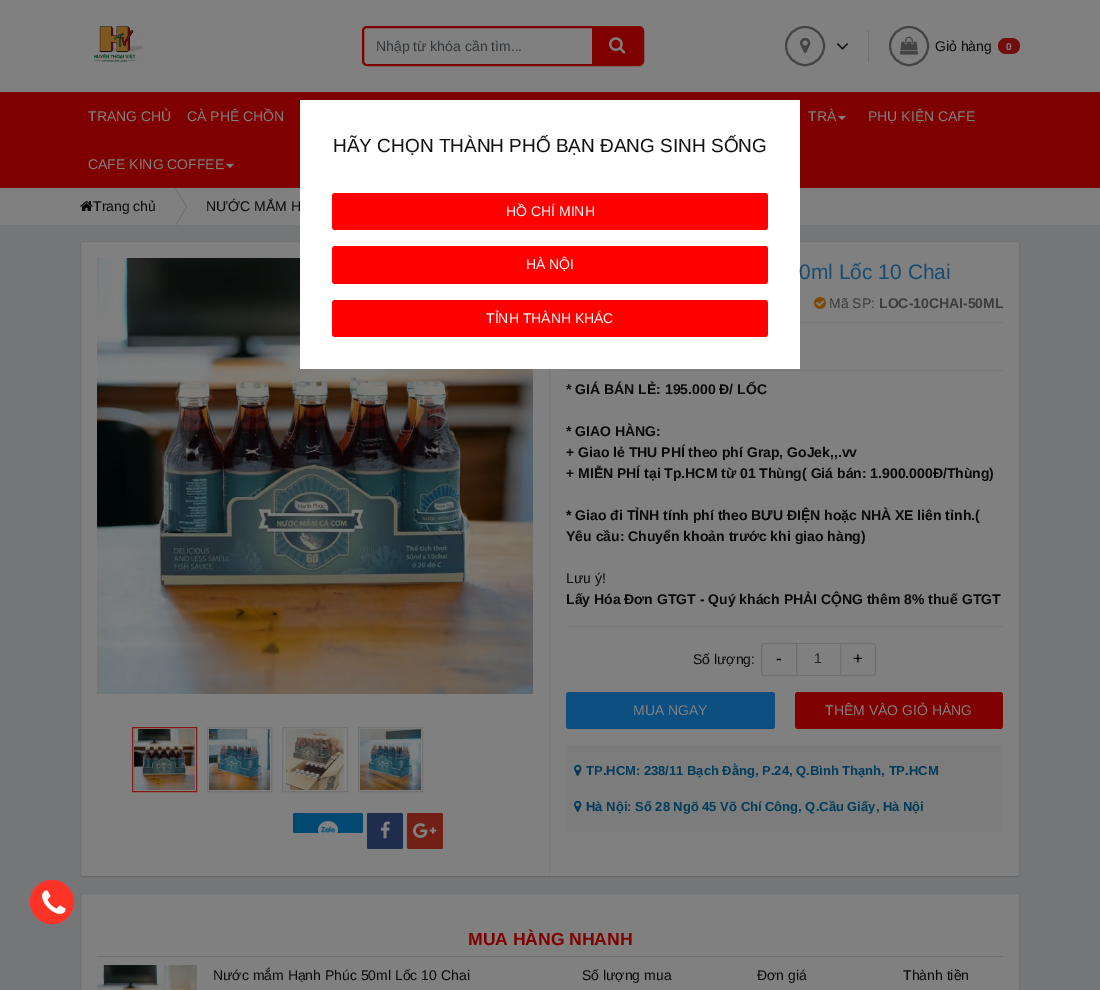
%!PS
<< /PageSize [1100 990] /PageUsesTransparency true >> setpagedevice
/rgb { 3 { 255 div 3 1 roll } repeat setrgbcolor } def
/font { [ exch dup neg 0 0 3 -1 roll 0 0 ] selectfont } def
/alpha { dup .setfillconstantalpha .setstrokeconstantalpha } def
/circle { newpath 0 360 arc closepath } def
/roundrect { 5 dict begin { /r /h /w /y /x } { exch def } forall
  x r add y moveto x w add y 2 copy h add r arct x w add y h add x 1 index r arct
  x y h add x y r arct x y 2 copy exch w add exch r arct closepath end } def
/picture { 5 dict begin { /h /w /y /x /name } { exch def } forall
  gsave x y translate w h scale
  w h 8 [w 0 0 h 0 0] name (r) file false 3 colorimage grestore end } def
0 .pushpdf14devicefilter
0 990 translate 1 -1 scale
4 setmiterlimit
117 118 119 rgb
0 0 1100 990 rectfill
128 128 128 rgb
0 0 1100 92 rectfill
(img/1.rgb) 93 26 50 36 picture
127 0 0 rgb
2 setlinewidth
363 27 280 38 4 roundrect stroke
592 28 50 36 rectfill
(img/2.rgb) 609 37 17 17 picture
68 68 68 rgb
805 46 19 circle stroke
(img/3.rgb) 800 37 11 17 picture
(img/4.rgb) 836 43 12 7 picture
111 111 111 rgb
868 30 1 32 rectfill
68 68 68 rgb
909 46 19 circle stroke
(img/5.rgb) 900 36 18 19 picture
114 15 13 rgb
998 38 22 16 8 roundrect fill
127 0 0 rgb
0 92 1100 96 rectfill
128 128 128 rgb
838 116 moveto 846 116 lineto 842 120 lineto closepath fill
226 164 moveto 234 164 lineto 230 168 lineto closepath fill
0 188 1100 37 rectfill
(img/6.rgb) 80 201 13 10 picture
gsave
0 188 1100 37 rectclip
104 105 107 rgb
157 257 moveto 157 157 lineto 187 207 lineto closepath fill
128 128 128 rgb
156 257 moveto 156 157 lineto 186 207 lineto closepath fill
grestore
80 241 940 636 3 roundrect fill
115 115 117 rgb
1 setlinewidth
81 242 moveto 83 241.5 lineto 1017 241.5 lineto 1019 242 lineto stroke
(img/8.rgb) 97 258 436 436 picture
255 255 255 rgb
300 100 500 269 rectfill
254 0 0 rgb
332 193 436 37 3 roundrect fill
332 246 436 38 3 roundrect fill
332 300 436 37 3 roundrect fill
255 52 37 rgb
52 902 22 circle fill
0.2 alpha
238 46 36 rgb
52 902 21.5 circle fill
1 alpha
255 51 51 rgb
52 902 21.5 circle stroke
(img/7.rgb) 42 890 24 24 picture
112 112 114 rgb
1019 242 moveto 1019.5 244 lineto 1019.5 874 lineto 1019 876 lineto stroke
104 105 107 rgb
1019 876 moveto 1017 876.5 lineto 83 876.5 lineto 81 876 lineto stroke
112 112 114 rgb
81 876 moveto 80.5 874 lineto 80.5 244 lineto 81 242 lineto stroke
121 121 121 rgb
549 369 1 507 rectfill
128 26 19 rgb
132.5 727.5 64 64 rectstroke
(img/9.rgb) 134 729 61 61 picture
114 114 114 rgb
207.5 727.5 64 64 rectstroke
(img/10.rgb) 209 729 61 61 picture
282.5 727.5 65 64 rectstroke
(img/11.rgb) 284 729 60 61 picture
358.5 727.5 64 64 rectstroke
(img/12.rgb) 360 729 61 61 picture
1 72 115 rgb
293 813 70 20 2 roundrect fill
(img/13.rgb) 318 821 20 12 picture
31 45 76 rgb
367 813 36 36 2 roundrect fill
(img/14.rgb) 380 821 10 18 picture
114 31 22 rgb
407 813 36 36 2 roundrect fill
(img/15.rgb) 413 823 24 15 picture
(img/16.rgb) 814 297 12 12 picture
[
  [800 322 203 1 119 119 119]
  [566 370 437 1 119 119 119]
  [566 626 437 1 119 119 119]
] { aload pop rgb rectfill } forall
111 111 111 rgb
764 643.5 moveto 796.5 643.5 lineto 796.5 675.5 lineto 764 675.5 lineto 762.5 675.5 761.5 674.5 761.5 673 curveto 761.5 646 lineto 761.5 644.5 762.5 643.5 764 643.5 curveto closepath stroke
797 643 43 1 rectfill
797 675 43 1 rectfill
840.5 643.5 moveto 873 643.5 lineto 874.5 643.5 875.5 644.5 875.5 646 curveto 875.5 673 lineto 875.5 674.5 874.5 675.5 873 675.5 curveto 840.5 675.5 lineto closepath stroke
12 79 128 rgb
566 692 209 37 3 roundrect fill
127 0 0 rgb
795 692 208 37 3 roundrect fill
124 124 124 rgb
566 745 437 87 rectfill
(img/17.rgb) 574 764 8 12 picture
(img/17.rgb) 574 800 8 12 picture
128 128 128 rgb
80 893 940 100 3 roundrect fill
115 115 117 rgb
81 894 moveto 83 893.5 lineto 1017 893.5 lineto 1019 894 lineto stroke
112 112 114 rgb
1019 894 moveto 1019.5 896 lineto 1019.5 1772 lineto 1019 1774 lineto stroke
81 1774 moveto 80.5 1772 lineto 80.5 896 lineto 81 894 lineto stroke
111 111 111 rgb
97 956 906 1 rectfill
(img/18.rgb) 97 965 100 25 picture
/LiberationSans-Regular 14 font
50 54 57 rgb
376 51 moveto (Nhập từ khóa cần tìm...) show
9 9 9 rgb
935 51 moveto (Giỏ hàng) show
/LiberationSans-Bold 10 font
128 128 128 rgb
1006 50 moveto (0) show
/LiberationSans-Regular 14 font
[
  [(TRANG CHỦ) 88 121]
  [(CÀ PHÊ CHỒN) 187 121]
  [(TRÀ) 808 121]
  [(PHỤ KIỆN CAFE) 868 121]
  [(CAFE KING COFFEE) 88 169]
] { aload pop moveto show } forall
9 9 9 rgb
93 211 moveto (Trang chủ) show
206 211 moveto (NƯỚC MẮM H) show
/LiberationSans-Regular 19 font
17 17 17 rgb
333 152 moveto (HÃY CHỌN THÀNH PHỐ BẠN ĐANG SINH SỐNG) show
/LiberationSans-Regular 14 font
255 255 255 rgb
[
  [(HỒ CHÍ MINH) 506 216]
  [(HÀ NỘI) 526 269]
  [(TỈNH THÀNH KHÁC) 486 323]
] { aload pop moveto show } forall
/LiberationSans-Regular 21 font
24 75 111 rgb
799 279 moveto (0ml Lốc 10 Chai) show
/LiberationSans-Regular 14 font
60 60 60 rgb
829 308 moveto (Mã SP:) show
/LiberationSans-Bold 14 font
879 308 moveto (LOC-10CHAI-50ML) show
9 9 9 rgb
[
  [(* GIÁ BÁN LẺ: 195.000 Đ/ LỐC) 566 394]
  [(* GIAO HÀNG:) 566 436]
  [(+ Giao lẻ THU PHÍ theo phí Grap, GoJek,,.vv) 566 457]
  [(+ MIỄN PHÍ tại Tp.HCM từ 01 Thùng\( Giá bán: 1.900.000Đ/Thùng\)) 566 478]
  [(* Giao đi TỈNH tính phí theo BƯU ĐIỆN hoặc NHÀ XE liên tỉnh.\() 566 520]
  [(Yêu cầu: Chuyển khoản trước khi giao hàng\)) 566 541]
] { aload pop moveto show } forall
/LiberationSans-Regular 14 font
566 583 moveto (Lưu ý!) show
/LiberationSans-Bold 14 font
566 604 moveto (Lấy Hóa Đơn GTGT - Quý khách PHẢI CỘNG thêm 8% thuế GTGT) show
/LiberationSans-Regular 14 font
693 664 moveto (Số lượng:) show
/LiberationSans-Regular 17 font
0 0 0 rgb
776 664 moveto (-) show
/LiberationSans-Regular 14 font
35 37 38 rgb
814 663 moveto (1) show
/LiberationSans-Regular 17 font
0 0 0 rgb
853 664 moveto (+) show
/LiberationSans-Regular 14 font
128 128 128 rgb
633 715 moveto (MUA NGAY) show
825 715 moveto (THÊM VÀO GIỎ HÀNG) show
/LiberationSans-Bold 13 font
0 60 91 rgb
586 775 moveto (TP.HCM: 238/11 Bạch Đằng, P.24, Q.Bình Thạnh, TP.HCM) show
586 811 moveto (Hà Nội: Số 28 Ngõ 45 Võ Chí Công, Q.Cầu Giấy, Hà Nội) show
/LiberationSans-Bold 17.5 font
127 0 0 rgb
468 945 moveto (MUA HÀNG NHANH) show
/LiberationSans-Regular 14 font
9 9 9 rgb
[
  [(Nước mắm Hạnh Phúc 50ml Lốc 10 Chai) 213 980]
  [(Số lượng mua) 582 980]
  [(Đơn giá) 757 980]
  [(Thành tiền) 903 980]
] { aload pop moveto show } forall
.poppdf14devicefilter showpage
